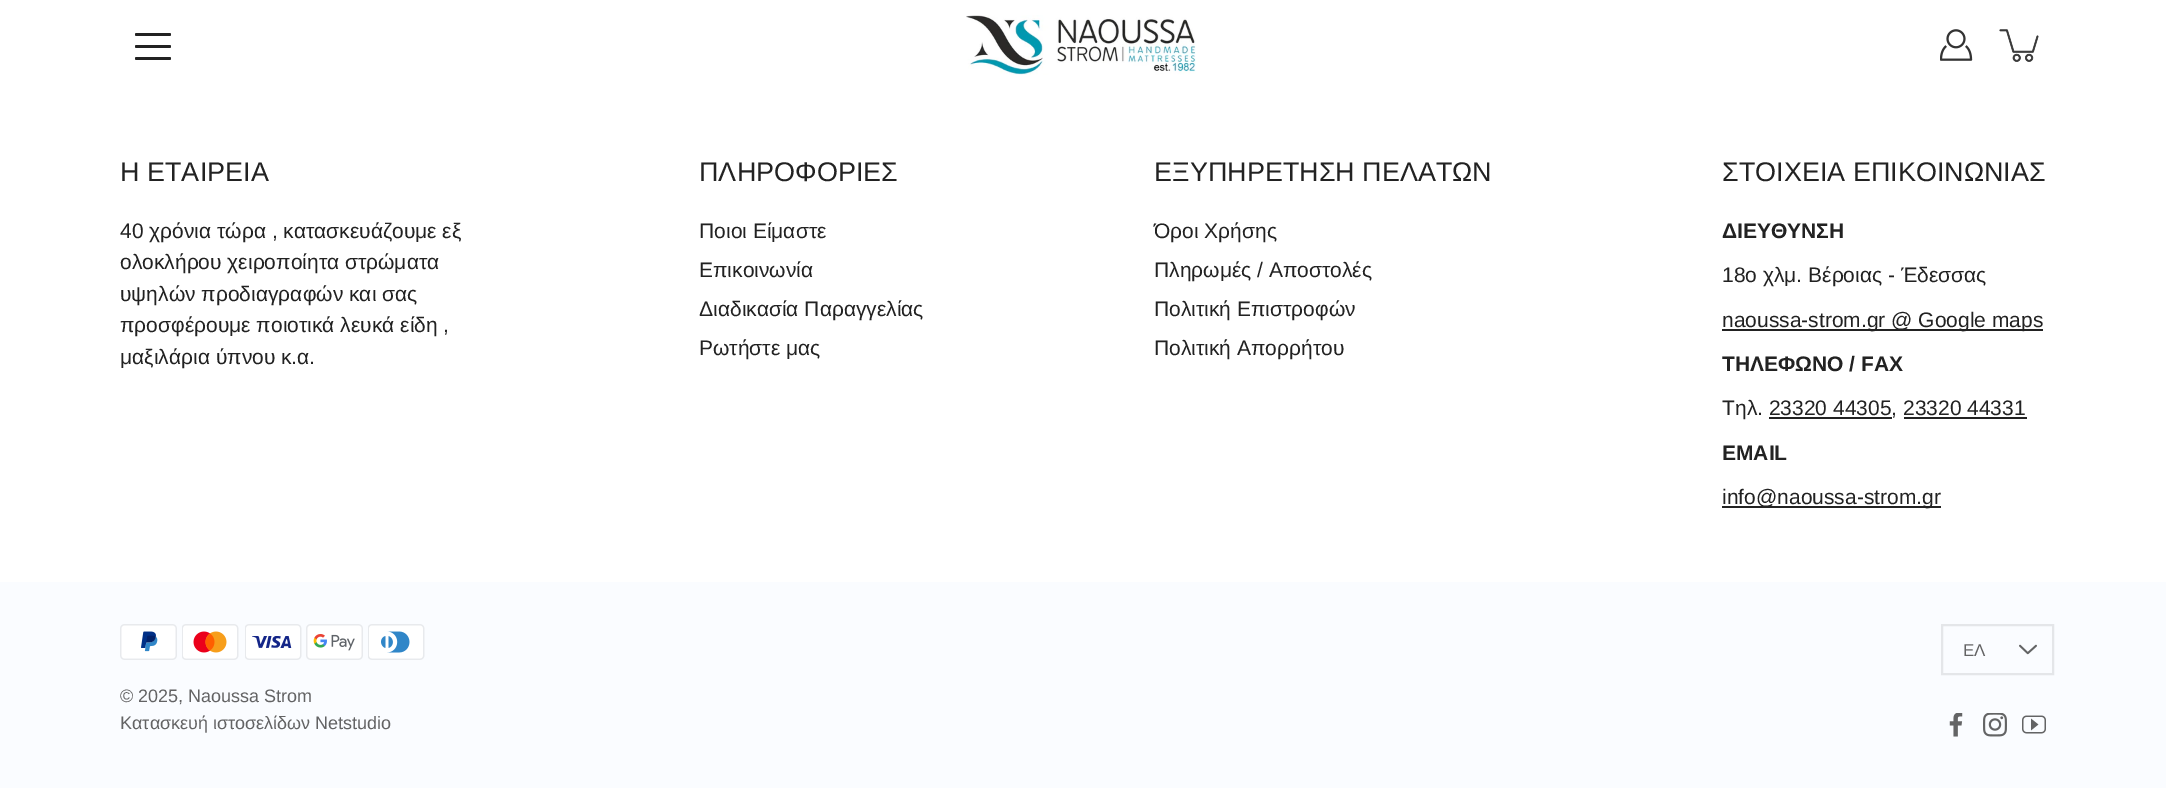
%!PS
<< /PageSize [2166 788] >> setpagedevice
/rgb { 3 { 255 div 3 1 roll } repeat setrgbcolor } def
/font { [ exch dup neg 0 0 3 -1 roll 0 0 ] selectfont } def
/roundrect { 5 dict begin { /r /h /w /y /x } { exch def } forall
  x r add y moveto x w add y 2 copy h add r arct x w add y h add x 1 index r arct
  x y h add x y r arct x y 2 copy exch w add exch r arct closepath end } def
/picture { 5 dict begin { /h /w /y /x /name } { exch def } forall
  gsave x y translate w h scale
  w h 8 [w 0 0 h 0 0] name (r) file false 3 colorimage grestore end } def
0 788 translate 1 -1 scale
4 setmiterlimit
255 255 255 rgb
0 0 2166 788 rectfill
(img/1.rgb) 966 15 230 60 picture
34 34 34 rgb
135 45 36 3 1.5 roundrect fill
135 33 36 3 1.5 roundrect fill
135 57 36 3 1.5 roundrect fill
(img/2.rgb) 1940 29 33 32 picture
(img/3.rgb) 1999 29 40 33 picture
[
  [1722 329 321 2 34 34 34]
  [1769 417 123 2 34 34 34]
  [1904 417 123 2 34 34 34]
  [1722 506 219 2 34 34 34]
  [0 582 2166 206 250 252 255]
] { aload pop rgb rectfill } forall
228 230 233 rgb
2 setlinewidth
1942 625 111 49 rectstroke
(img/4.rgb) 2019 644 18 11 picture
(img/5.rgb) 1949 713 14 24 picture
(img/6.rgb) 1983 713 24 24 picture
(img/7.rgb) 2022 715 24 19 picture
(img/8.rgb) 120 624 57 36 picture
(img/9.rgb) 182 624 57 36 picture
(img/10.rgb) 245 624 57 36 picture
(img/11.rgb) 306 624 57 36 picture
(img/12.rgb) 368 624 57 36 picture
/LiberationSans-Regular 27 font
34 34 34 rgb
120 181 moveto (Η ΕΤΑΙΡΕΙΑ) show
/LiberationSans-Regular 21 font
[
  [(40 χρόνια τώρα , κατασκευάζουμε εξ) 120 238]
  [(ολοκλήρου χειροποίητα στρώματα) 120 269]
  [(υψηλών προδιαγραφών και σας) 120 301]
  [(προσφέρουμε ποιοτικά λευκά είδη ,) 120 332]
  [(μαξιλάρια ύπνου κ.α.) 120 364]
] { aload pop moveto show } forall
/LiberationSans-Regular 27 font
699 181 moveto (ΠΛΗΡΟΦΟΡΙΕΣ) show
/LiberationSans-Regular 21 font
[
  [(Ποιοι Είμαστε) 699 238]
  [(Επικοινωνία) 699 277]
  [(Διαδικασία Παραγγελίας) 699 316]
  [(Ρωτήστε μας) 699 355]
] { aload pop moveto show } forall
/LiberationSans-Regular 27 font
1154 181 moveto (ΕΞΥΠΗΡΕΤΗΣΗ ΠΕΛΑΤΩΝ) show
/LiberationSans-Regular 21 font
[
  [(Όροι Χρήσης) 1154 238]
  [(Πληρωμές / Αποστολές) 1154 277]
  [(Πολιτική Επιστροφών) 1154 316]
  [(Πολιτική Απορρήτου) 1154 355]
] { aload pop moveto show } forall
/LiberationSans-Regular 27 font
1722 181 moveto (ΣΤΟΙΧΕΙΑ ΕΠΙΚΟΙΝΩΝΙΑΣ) show
/LiberationSans-Bold 21 font
1722 238 moveto (ΔΙΕΥΘΥΝΣΗ) show
/LiberationSans-Regular 21 font
1722 282 moveto (18ο χλμ. Βέροιας - Έδεσσας) show
1722 327 moveto (naoussa-strom.gr @ Google maps) show
/LiberationSans-Bold 21 font
1722 371 moveto (ΤΗΛΕΦΩΝΟ / FAX) show
/LiberationSans-Regular 21 font
1722 415 moveto (Τηλ. 23320 44305, 23320 44331) show
/LiberationSans-Bold 21 font
1722 460 moveto (EMAIL) show
/LiberationSans-Regular 21 font
1722 504 moveto (info@naoussa-strom.gr) show
/LiberationSans-Regular 17 font
99 99 100 rgb
1963 656 moveto (ΕΛ) show
/LiberationSans-Regular 18 font
120 702 moveto (© 2025, Naoussa Strom) show
120 729 moveto (Κατασκευή ιστοσελίδων Netstudio) show
showpage
